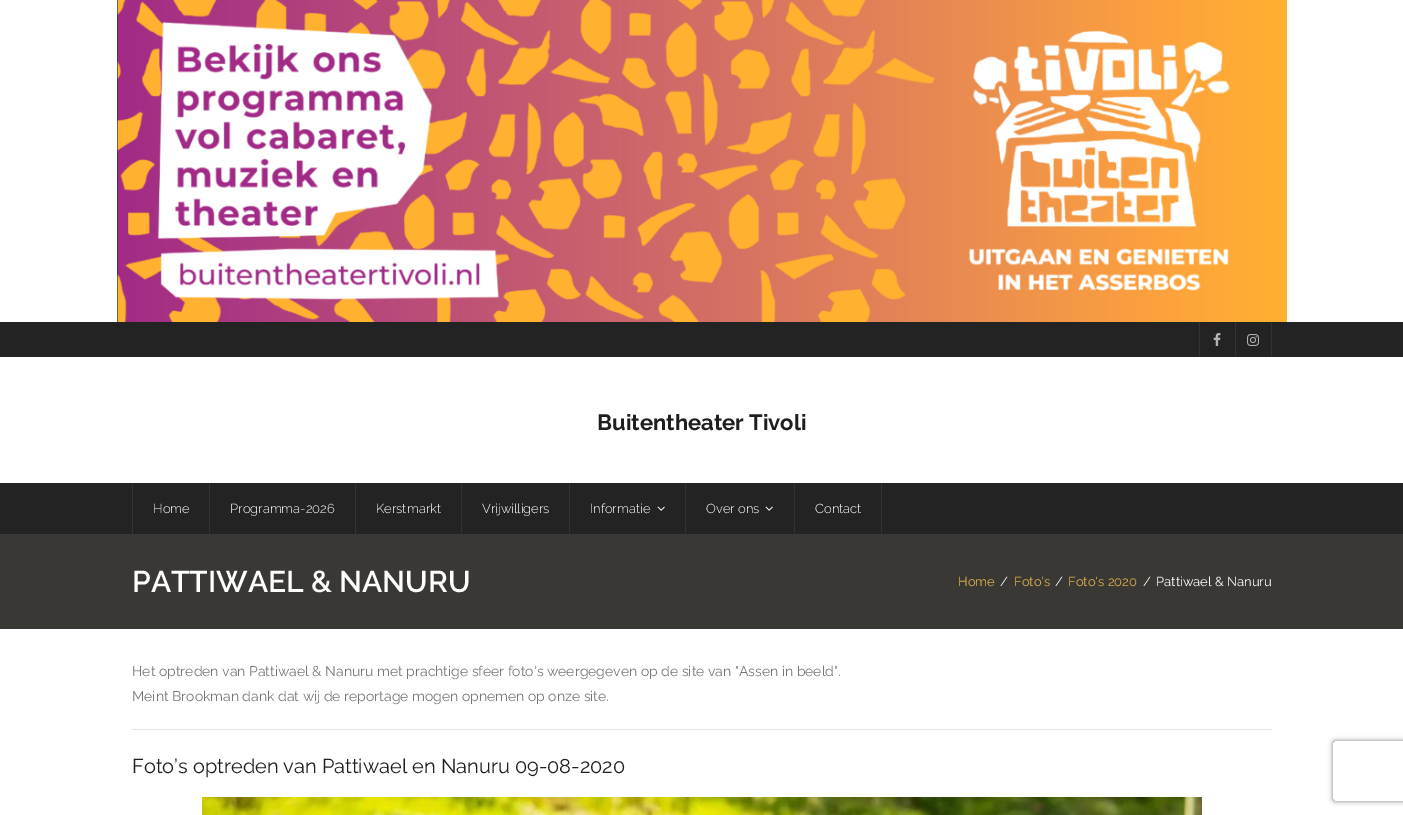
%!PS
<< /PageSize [1403 815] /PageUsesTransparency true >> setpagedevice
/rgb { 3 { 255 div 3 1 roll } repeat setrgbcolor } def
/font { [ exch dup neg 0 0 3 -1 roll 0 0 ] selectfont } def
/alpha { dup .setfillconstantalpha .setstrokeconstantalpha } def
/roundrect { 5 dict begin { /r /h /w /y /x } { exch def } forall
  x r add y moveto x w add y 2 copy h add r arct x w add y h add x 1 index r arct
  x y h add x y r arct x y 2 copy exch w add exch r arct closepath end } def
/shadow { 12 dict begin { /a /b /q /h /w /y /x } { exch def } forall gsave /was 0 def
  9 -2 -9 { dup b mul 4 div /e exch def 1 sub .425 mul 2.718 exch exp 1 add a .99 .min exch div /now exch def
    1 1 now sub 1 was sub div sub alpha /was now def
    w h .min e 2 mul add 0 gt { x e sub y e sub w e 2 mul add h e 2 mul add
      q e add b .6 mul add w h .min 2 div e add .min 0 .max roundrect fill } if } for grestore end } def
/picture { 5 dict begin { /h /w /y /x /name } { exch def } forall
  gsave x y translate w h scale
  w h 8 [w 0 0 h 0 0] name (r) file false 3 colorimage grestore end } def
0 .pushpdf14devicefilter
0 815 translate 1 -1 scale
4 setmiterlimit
255 255 255 rgb
0 0 1403 815 rectfill
(img/1.rgb) 117 0 1170 322 picture
35 35 35 rgb
0 322 1403 35 rectfill
51 51 51 rgb
1199 322 1 35 rectfill
(img/2.rgb) 1213 333 8 13 picture
1271 322 1 35 rectfill
1235 322 1 35 rectfill
(img/3.rgb) 1247 334 12 12 picture
[
  [0 483 1403 51 35 35 35]
  [132 483 1 51 51 51 51]
  [209 483 1 51 51 51 51]
  [355 483 1 51 51 51 51]
  [461 483 1 51 51 51 51]
  [569 483 1 51 51 51 51]
] { aload pop rgb rectfill } forall
(img/4.rgb) 657 506 8 5 picture
685 483 1 51 rectfill
(img/4.rgb) 765 506 8 5 picture
[
  [881 483 1 51 51 51 51]
  [794 483 1 51 51 51 51]
  [0 534 1403 95 58 56 53]
  [132 729 1140 1 230 230 230]
] { aload pop rgb rectfill } forall
(img/5.rgb) 202 797 1000 18 picture
gsave
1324 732 moveto 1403 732 lineto 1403 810 lineto 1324 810 lineto closepath 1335 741 moveto 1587 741 lineto 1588 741 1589 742 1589 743 curveto 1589 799 lineto 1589 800 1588 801 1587 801 curveto 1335 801 lineto 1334 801 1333 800 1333 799 curveto 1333 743 lineto 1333 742 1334 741 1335 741 curveto closepath eoclip newpath
128 128 128 rgb
1333 741 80 60 2 2.5 1 shadow
grestore
/Raleway-Bold 22 font
30 30 30 rgb
597 430 moveto (Buitentheater Tivoli) show
/Raleway-Light 13 font
255 255 255 rgb
[
  [(Home) 153 513]
  [(Programma-2026) 230 513]
  [(Kerstmarkt) 376 513]
  [(Vrijwilligers) 482 513]
  [(Informatie) 590 513]
  [(Over ons) 706 513]
  [(Contact) 815 513]
] { aload pop moveto show } forall
/Raleway-SemiBold 30 font
132 592 moveto (PATTIWAEL & NANURU) show
/Raleway-Regular 13 font
221 175 77 rgb
958 586 moveto (Home) show
255 255 255 rgb
1000 586 moveto (/) show
221 175 77 rgb
1014 586 moveto (Foto's) show
255 255 255 rgb
1055 586 moveto (/) show
221 175 77 rgb
1068 586 moveto (Foto's 2020) show
255 255 255 rgb
1143 586 moveto (/) show
1156 586 moveto (Pattiwael & Nanuru) show
/Raleway-Regular 14 font
119 119 119 rgb
132 676 moveto (Het optreden van Pattiwael & Nanuru met prachtige sfeer foto's weergegeven op de site van "Assen in beeld".) show
132 701 moveto (Meint Brookman dank dat wij de reportage mogen opnemen op onze site.) show
/Raleway-Regular 20 font
30 30 30 rgb
132 773 moveto (Foto’s optreden van Pattiwael en Nanuru 09-08-2020) show
.poppdf14devicefilter showpage
